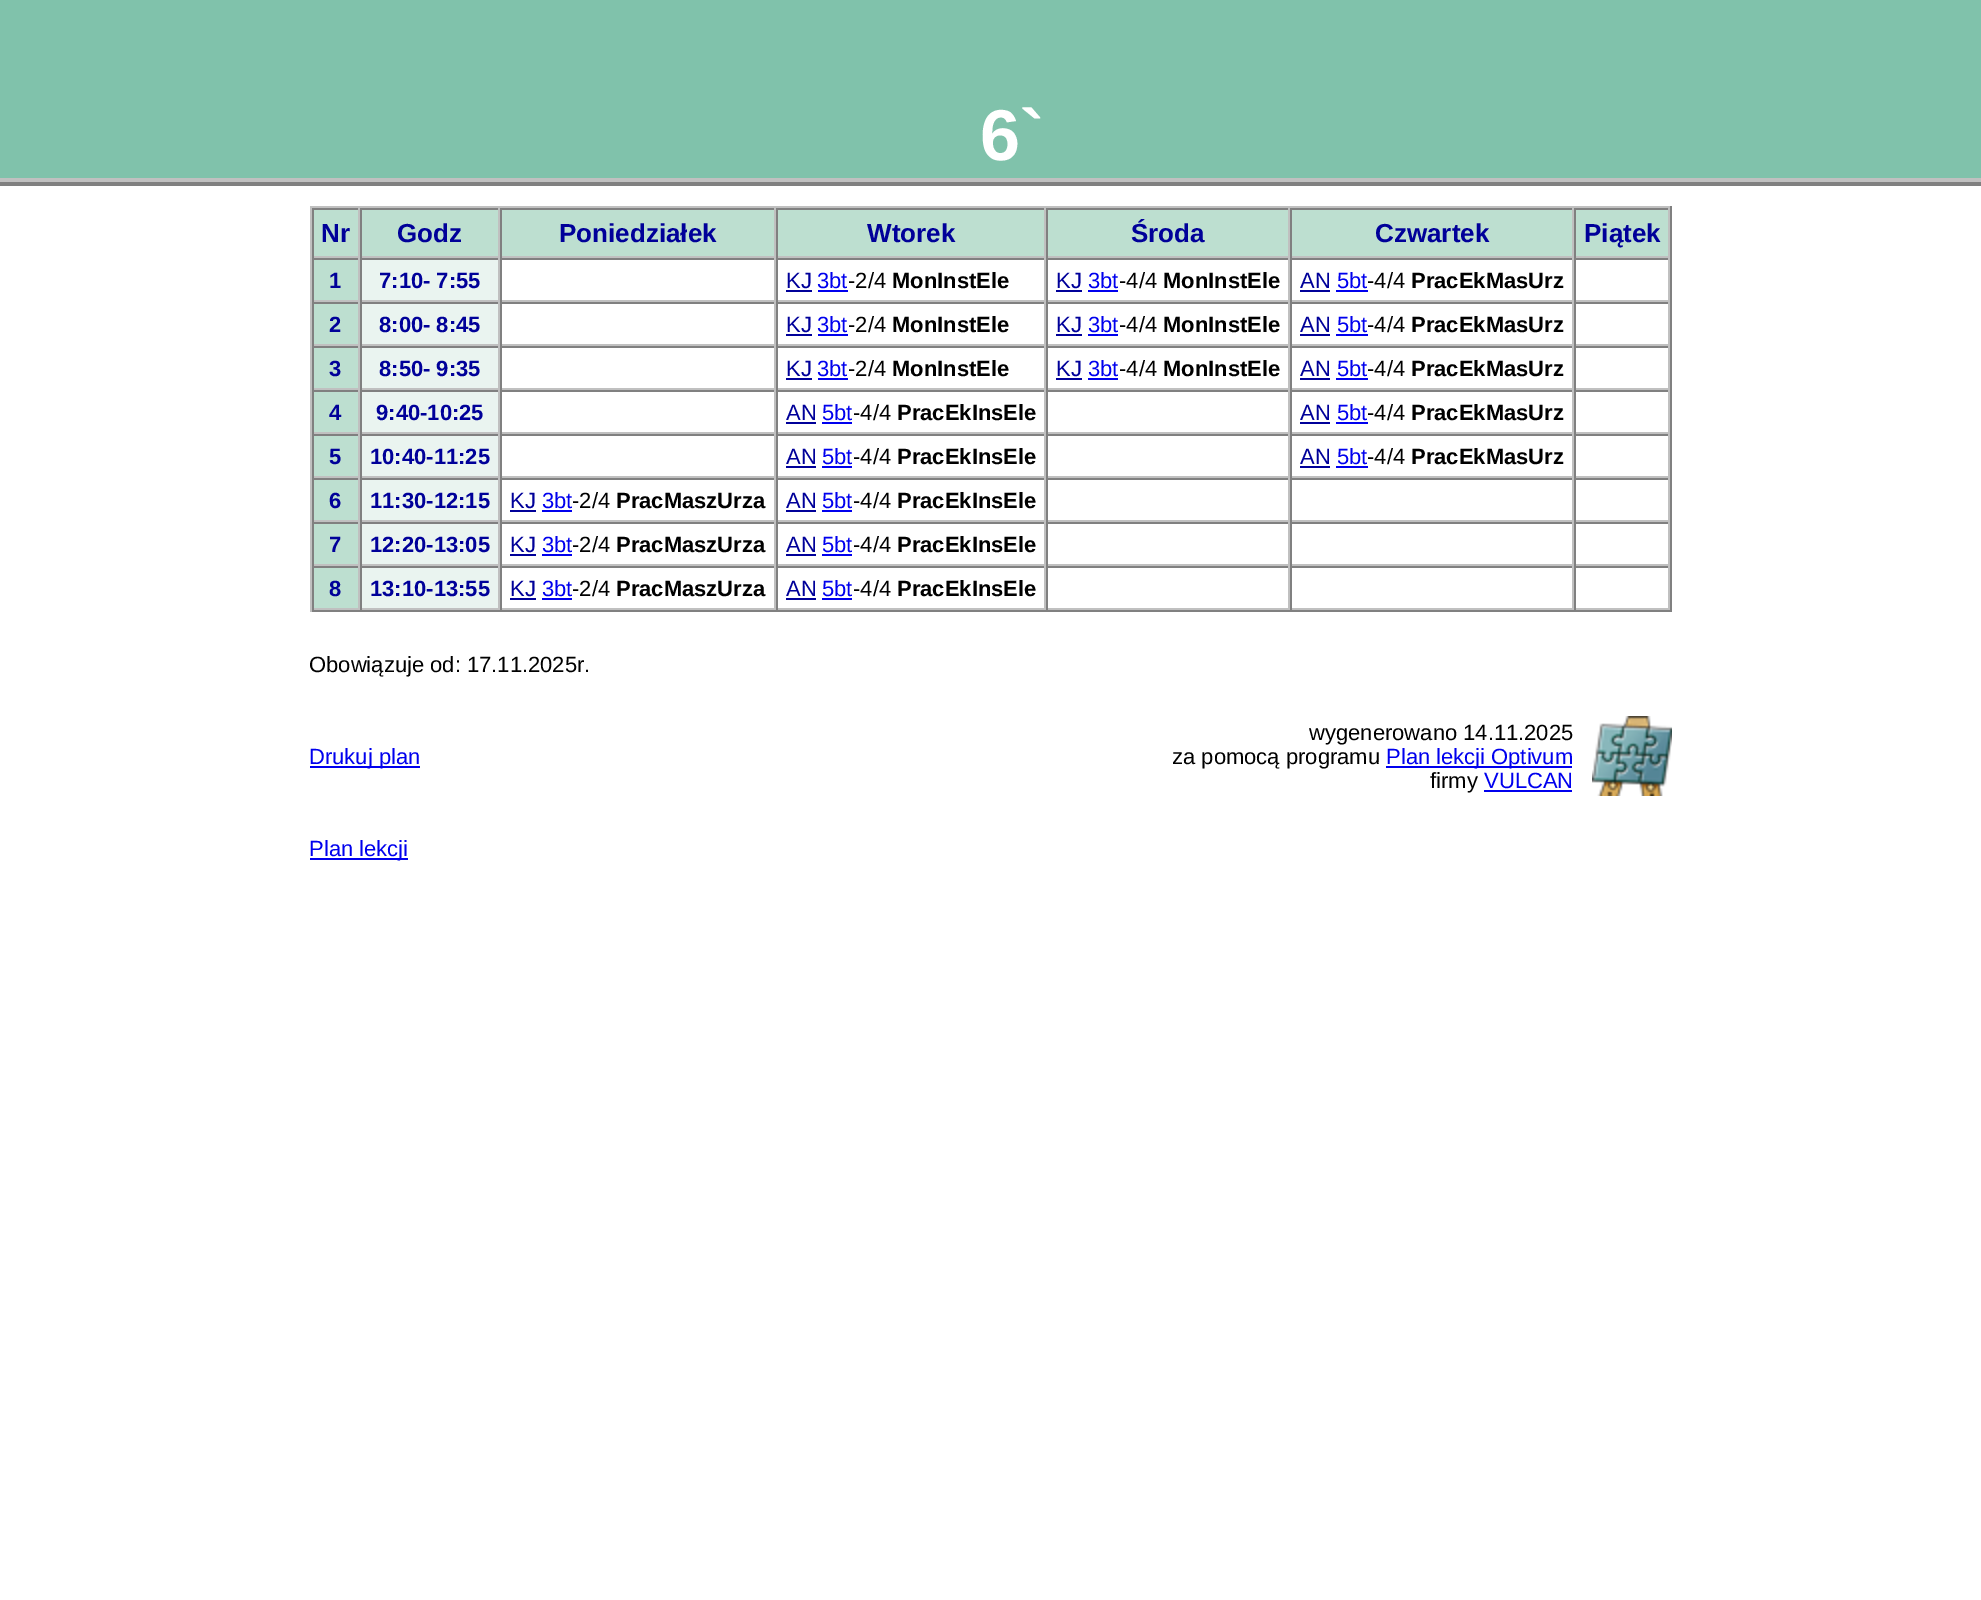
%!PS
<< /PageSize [1981 1600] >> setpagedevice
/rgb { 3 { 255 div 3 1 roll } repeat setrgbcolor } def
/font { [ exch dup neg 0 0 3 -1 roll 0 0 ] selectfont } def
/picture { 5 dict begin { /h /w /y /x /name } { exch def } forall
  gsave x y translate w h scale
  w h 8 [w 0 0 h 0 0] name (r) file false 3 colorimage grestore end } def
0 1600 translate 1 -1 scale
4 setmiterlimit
255 255 255 rgb
0 0 1981 1600 rectfill
[
  [0 0 1981 178 128 194 171]
  [0 182 1981 4 128 128 128]
  [0 178 1981 4 192 192 192]
  [310 206 1362 2 192 192 192]
  [1670 206 2 406 128 128 128]
  [310 610 1362 2 128 128 128]
  [310 206 2 406 192 192 192]
  [314 210 44 46 189 223 208]
  [312 208 1358 2 128 128 128]
  [358 208 2 50 192 192 192]
  [312 256 48 2 192 192 192]
  [312 208 2 50 128 128 128]
  [362 210 136 46 189 223 208]
  [498 208 2 50 192 192 192]
  [360 256 140 2 192 192 192]
  [360 208 2 50 128 128 128]
  [502 210 272 46 189 223 208]
  [774 208 2 50 192 192 192]
  [500 256 276 2 192 192 192]
  [500 208 2 50 128 128 128]
  [778 210 266 46 189 223 208]
  [1044 208 2 50 192 192 192]
  [776 256 270 2 192 192 192]
  [776 208 2 50 128 128 128]
  [1048 210 240 46 189 223 208]
  [1288 208 2 50 192 192 192]
  [1046 256 244 2 192 192 192]
  [1046 208 2 50 128 128 128]
  [1292 210 280 46 189 223 208]
  [1572 208 2 50 192 192 192]
  [1290 256 284 2 192 192 192]
  [1290 208 2 50 128 128 128]
  [1576 210 92 46 189 223 208]
  [1668 208 2 50 192 192 192]
  [1574 256 96 2 192 192 192]
  [1574 208 2 50 128 128 128]
  [314 260 44 40 189 223 208]
  [312 258 1358 2 128 128 128]
  [358 258 2 44 192 192 192]
  [312 300 48 2 192 192 192]
  [312 258 2 44 128 128 128]
  [362 260 136 40 234 244 240]
  [498 258 2 44 192 192 192]
  [360 300 140 2 192 192 192]
  [360 258 2 44 128 128 128]
  [774 258 2 44 192 192 192]
  [500 300 276 2 192 192 192]
  [500 258 2 44 128 128 128]
  [1044 258 2 44 192 192 192]
  [776 300 270 2 192 192 192]
  [776 258 2 44 128 128 128]
  [786 290 26 2 0 0 153]
  [818 290 30 2 0 0 238]
  [1288 258 2 44 192 192 192]
  [1046 300 244 2 192 192 192]
  [1046 258 2 44 128 128 128]
  [1056 290 26 2 0 0 153]
  [1088 290 30 2 0 0 238]
  [1572 258 2 44 192 192 192]
  [1290 300 284 2 192 192 192]
  [1290 258 2 44 128 128 128]
  [1300 290 30 2 0 0 153]
  [1336 290 32 2 0 0 238]
  [1668 258 2 44 192 192 192]
  [1574 300 96 2 192 192 192]
  [1574 258 2 44 128 128 128]
  [314 304 44 40 189 223 208]
  [312 302 1358 2 128 128 128]
  [358 302 2 44 192 192 192]
  [312 344 48 2 192 192 192]
  [312 302 2 44 128 128 128]
  [362 304 136 40 234 244 240]
  [498 302 2 44 192 192 192]
  [360 344 140 2 192 192 192]
  [360 302 2 44 128 128 128]
  [774 302 2 44 192 192 192]
  [500 344 276 2 192 192 192]
  [500 302 2 44 128 128 128]
  [1044 302 2 44 192 192 192]
  [776 344 270 2 192 192 192]
  [776 302 2 44 128 128 128]
  [786 334 26 2 0 0 153]
  [818 334 30 2 0 0 238]
  [1288 302 2 44 192 192 192]
  [1046 344 244 2 192 192 192]
  [1046 302 2 44 128 128 128]
  [1056 334 26 2 0 0 153]
  [1088 334 30 2 0 0 238]
  [1572 302 2 44 192 192 192]
  [1290 344 284 2 192 192 192]
  [1290 302 2 44 128 128 128]
  [1300 334 30 2 0 0 153]
  [1336 334 32 2 0 0 238]
  [1668 302 2 44 192 192 192]
  [1574 344 96 2 192 192 192]
  [1574 302 2 44 128 128 128]
  [314 348 44 40 189 223 208]
  [312 346 1358 2 128 128 128]
  [358 346 2 44 192 192 192]
  [312 388 48 2 192 192 192]
  [312 346 2 44 128 128 128]
  [362 348 136 40 234 244 240]
  [498 346 2 44 192 192 192]
  [360 388 140 2 192 192 192]
  [360 346 2 44 128 128 128]
  [774 346 2 44 192 192 192]
  [500 388 276 2 192 192 192]
  [500 346 2 44 128 128 128]
  [1044 346 2 44 192 192 192]
  [776 388 270 2 192 192 192]
  [776 346 2 44 128 128 128]
  [786 378 26 2 0 0 153]
  [818 378 30 2 0 0 238]
  [1288 346 2 44 192 192 192]
  [1046 388 244 2 192 192 192]
  [1046 346 2 44 128 128 128]
  [1056 378 26 2 0 0 153]
  [1088 378 30 2 0 0 238]
  [1572 346 2 44 192 192 192]
  [1290 388 284 2 192 192 192]
  [1290 346 2 44 128 128 128]
  [1300 378 30 2 0 0 153]
  [1336 378 32 2 0 0 238]
  [1668 346 2 44 192 192 192]
  [1574 388 96 2 192 192 192]
  [1574 346 2 44 128 128 128]
  [314 392 44 40 189 223 208]
  [312 390 1358 2 128 128 128]
  [358 390 2 44 192 192 192]
  [312 432 48 2 192 192 192]
  [312 390 2 44 128 128 128]
  [362 392 136 40 234 244 240]
  [498 390 2 44 192 192 192]
  [360 432 140 2 192 192 192]
  [360 390 2 44 128 128 128]
  [774 390 2 44 192 192 192]
  [500 432 276 2 192 192 192]
  [500 390 2 44 128 128 128]
  [1044 390 2 44 192 192 192]
  [776 432 270 2 192 192 192]
  [776 390 2 44 128 128 128]
  [786 422 30 2 0 0 153]
  [822 422 30 2 0 0 238]
  [1288 390 2 44 192 192 192]
  [1046 432 244 2 192 192 192]
  [1046 390 2 44 128 128 128]
  [1572 390 2 44 192 192 192]
  [1290 432 284 2 192 192 192]
  [1290 390 2 44 128 128 128]
  [1300 422 30 2 0 0 153]
  [1336 422 32 2 0 0 238]
  [1668 390 2 44 192 192 192]
  [1574 432 96 2 192 192 192]
  [1574 390 2 44 128 128 128]
  [314 436 44 40 189 223 208]
  [312 434 1358 2 128 128 128]
  [358 434 2 44 192 192 192]
  [312 476 48 2 192 192 192]
  [312 434 2 44 128 128 128]
  [362 436 136 40 234 244 240]
  [498 434 2 44 192 192 192]
  [360 476 140 2 192 192 192]
  [360 434 2 44 128 128 128]
  [774 434 2 44 192 192 192]
  [500 476 276 2 192 192 192]
  [500 434 2 44 128 128 128]
  [1044 434 2 44 192 192 192]
  [776 476 270 2 192 192 192]
  [776 434 2 44 128 128 128]
  [786 466 30 2 0 0 153]
  [822 466 30 2 0 0 238]
  [1288 434 2 44 192 192 192]
  [1046 476 244 2 192 192 192]
  [1046 434 2 44 128 128 128]
  [1572 434 2 44 192 192 192]
  [1290 476 284 2 192 192 192]
  [1290 434 2 44 128 128 128]
  [1300 466 30 2 0 0 153]
  [1336 466 32 2 0 0 238]
  [1668 434 2 44 192 192 192]
  [1574 476 96 2 192 192 192]
  [1574 434 2 44 128 128 128]
  [314 480 44 40 189 223 208]
  [312 478 1358 2 128 128 128]
  [358 478 2 44 192 192 192]
  [312 520 48 2 192 192 192]
  [312 478 2 44 128 128 128]
  [362 480 136 40 234 244 240]
  [498 478 2 44 192 192 192]
  [360 520 140 2 192 192 192]
  [360 478 2 44 128 128 128]
  [774 478 2 44 192 192 192]
  [500 520 276 2 192 192 192]
  [500 478 2 44 128 128 128]
  [510 510 26 2 0 0 153]
  [542 510 30 2 0 0 238]
  [1044 478 2 44 192 192 192]
  [776 520 270 2 192 192 192]
  [776 478 2 44 128 128 128]
  [786 510 30 2 0 0 153]
  [822 510 30 2 0 0 238]
  [1288 478 2 44 192 192 192]
  [1046 520 244 2 192 192 192]
  [1046 478 2 44 128 128 128]
  [1572 478 2 44 192 192 192]
  [1290 520 284 2 192 192 192]
  [1290 478 2 44 128 128 128]
  [1668 478 2 44 192 192 192]
  [1574 520 96 2 192 192 192]
  [1574 478 2 44 128 128 128]
  [314 524 44 40 189 223 208]
  [312 522 1358 2 128 128 128]
  [358 522 2 44 192 192 192]
  [312 564 48 2 192 192 192]
  [312 522 2 44 128 128 128]
  [362 524 136 40 234 244 240]
  [498 522 2 44 192 192 192]
  [360 564 140 2 192 192 192]
  [360 522 2 44 128 128 128]
  [774 522 2 44 192 192 192]
  [500 564 276 2 192 192 192]
  [500 522 2 44 128 128 128]
  [510 554 26 2 0 0 153]
  [542 554 30 2 0 0 238]
  [1044 522 2 44 192 192 192]
  [776 564 270 2 192 192 192]
  [776 522 2 44 128 128 128]
  [786 554 30 2 0 0 153]
  [822 554 30 2 0 0 238]
  [1288 522 2 44 192 192 192]
  [1046 564 244 2 192 192 192]
  [1046 522 2 44 128 128 128]
  [1572 522 2 44 192 192 192]
  [1290 564 284 2 192 192 192]
  [1290 522 2 44 128 128 128]
  [1668 522 2 44 192 192 192]
  [1574 564 96 2 192 192 192]
  [1574 522 2 44 128 128 128]
  [314 568 44 40 189 223 208]
  [312 566 1358 2 128 128 128]
  [358 566 2 44 192 192 192]
  [312 608 48 2 192 192 192]
  [312 566 2 44 128 128 128]
  [362 568 136 40 234 244 240]
  [498 566 2 44 192 192 192]
  [360 608 140 2 192 192 192]
  [360 566 2 44 128 128 128]
  [774 566 2 44 192 192 192]
  [500 608 276 2 192 192 192]
  [500 566 2 44 128 128 128]
  [510 598 26 2 0 0 153]
  [542 598 30 2 0 0 238]
  [1044 566 2 44 192 192 192]
  [776 608 270 2 192 192 192]
  [776 566 2 44 128 128 128]
  [786 598 30 2 0 0 153]
  [822 598 30 2 0 0 238]
  [1288 566 2 44 192 192 192]
  [1046 608 244 2 192 192 192]
  [1046 566 2 44 128 128 128]
  [1572 566 2 44 192 192 192]
  [1290 608 284 2 192 192 192]
  [1290 566 2 44 128 128 128]
  [1668 566 2 44 192 192 192]
  [1574 608 96 2 192 192 192]
  [1574 566 2 44 128 128 128]
  [310 766 110 2 0 0 238]
  [1386 766 186 2 0 0 238]
  [1484 790 88 2 0 0 238]
] { aload pop rgb rectfill } forall
(img/1.rgb) 1592 716 80 80 picture
310 858 98 2 rectfill
/LiberationSans-Bold 72 font
255 255 255 rgb
980 160 moveto (6`) show
/LiberationSans-Bold 26 font
0 0 153 rgb
[
  [(Nr) 321 242]
  [(Godz) 397 242]
  [(Poniedziałek) 559 242]
  [(Wtorek) 867 242]
  [(Środa) 1131 242]
  [(Czwartek) 1375 242]
  [(Piątek) 1584 242]
] { aload pop moveto show } forall
/LiberationSans-Bold 22 font
329 288 moveto (1) show
379 288 moveto (7:10- 7:55) show
/LiberationSans-Regular 22 font
786 288 moveto (KJ) show
0 0 238 rgb
817 288 moveto (3bt) show
0 0 0 rgb
848 288 moveto (-2/4) show
/LiberationSans-Bold 22 font
892 288 moveto (MonInstEle) show
/LiberationSans-Regular 22 font
0 0 153 rgb
1056 288 moveto (KJ) show
0 0 238 rgb
1088 288 moveto (3bt) show
0 0 0 rgb
1119 288 moveto (-4/4) show
/LiberationSans-Bold 22 font
1163 288 moveto (MonInstEle) show
/LiberationSans-Regular 22 font
0 0 153 rgb
1300 288 moveto (AN) show
0 0 238 rgb
1337 288 moveto (5bt) show
0 0 0 rgb
1367 288 moveto (-4/4) show
/LiberationSans-Bold 22 font
1411 288 moveto (PracEkMasUrz) show
0 0 153 rgb
329 332 moveto (2) show
379 332 moveto (8:00- 8:45) show
/LiberationSans-Regular 22 font
786 332 moveto (KJ) show
0 0 238 rgb
817 332 moveto (3bt) show
0 0 0 rgb
848 332 moveto (-2/4) show
/LiberationSans-Bold 22 font
892 332 moveto (MonInstEle) show
/LiberationSans-Regular 22 font
0 0 153 rgb
1056 332 moveto (KJ) show
0 0 238 rgb
1088 332 moveto (3bt) show
0 0 0 rgb
1119 332 moveto (-4/4) show
/LiberationSans-Bold 22 font
1163 332 moveto (MonInstEle) show
/LiberationSans-Regular 22 font
0 0 153 rgb
1300 332 moveto (AN) show
0 0 238 rgb
1337 332 moveto (5bt) show
0 0 0 rgb
1367 332 moveto (-4/4) show
/LiberationSans-Bold 22 font
1411 332 moveto (PracEkMasUrz) show
0 0 153 rgb
329 376 moveto (3) show
379 376 moveto (8:50- 9:35) show
/LiberationSans-Regular 22 font
786 376 moveto (KJ) show
0 0 238 rgb
817 376 moveto (3bt) show
0 0 0 rgb
848 376 moveto (-2/4) show
/LiberationSans-Bold 22 font
892 376 moveto (MonInstEle) show
/LiberationSans-Regular 22 font
0 0 153 rgb
1056 376 moveto (KJ) show
0 0 238 rgb
1088 376 moveto (3bt) show
0 0 0 rgb
1119 376 moveto (-4/4) show
/LiberationSans-Bold 22 font
1163 376 moveto (MonInstEle) show
/LiberationSans-Regular 22 font
0 0 153 rgb
1300 376 moveto (AN) show
0 0 238 rgb
1337 376 moveto (5bt) show
0 0 0 rgb
1367 376 moveto (-4/4) show
/LiberationSans-Bold 22 font
1411 376 moveto (PracEkMasUrz) show
0 0 153 rgb
329 420 moveto (4) show
376 420 moveto (9:40-10:25) show
/LiberationSans-Regular 22 font
786 420 moveto (AN) show
0 0 238 rgb
822 420 moveto (5bt) show
0 0 0 rgb
853 420 moveto (-4/4) show
/LiberationSans-Bold 22 font
897 420 moveto (PracEkInsEle) show
/LiberationSans-Regular 22 font
0 0 153 rgb
1300 420 moveto (AN) show
0 0 238 rgb
1337 420 moveto (5bt) show
0 0 0 rgb
1367 420 moveto (-4/4) show
/LiberationSans-Bold 22 font
1411 420 moveto (PracEkMasUrz) show
0 0 153 rgb
329 464 moveto (5) show
370 464 moveto (10:40-11:25) show
/LiberationSans-Regular 22 font
786 464 moveto (AN) show
0 0 238 rgb
822 464 moveto (5bt) show
0 0 0 rgb
853 464 moveto (-4/4) show
/LiberationSans-Bold 22 font
897 464 moveto (PracEkInsEle) show
/LiberationSans-Regular 22 font
0 0 153 rgb
1300 464 moveto (AN) show
0 0 238 rgb
1337 464 moveto (5bt) show
0 0 0 rgb
1367 464 moveto (-4/4) show
/LiberationSans-Bold 22 font
1411 464 moveto (PracEkMasUrz) show
0 0 153 rgb
329 508 moveto (6) show
370 508 moveto (11:30-12:15) show
/LiberationSans-Regular 22 font
510 508 moveto (KJ) show
0 0 238 rgb
542 508 moveto (3bt) show
0 0 0 rgb
572 508 moveto (-2/4) show
/LiberationSans-Bold 22 font
616 508 moveto (PracMaszUrza) show
/LiberationSans-Regular 22 font
0 0 153 rgb
786 508 moveto (AN) show
0 0 238 rgb
822 508 moveto (5bt) show
0 0 0 rgb
853 508 moveto (-4/4) show
/LiberationSans-Bold 22 font
897 508 moveto (PracEkInsEle) show
0 0 153 rgb
329 552 moveto (7) show
370 552 moveto (12:20-13:05) show
/LiberationSans-Regular 22 font
510 552 moveto (KJ) show
0 0 238 rgb
542 552 moveto (3bt) show
0 0 0 rgb
572 552 moveto (-2/4) show
/LiberationSans-Bold 22 font
616 552 moveto (PracMaszUrza) show
/LiberationSans-Regular 22 font
0 0 153 rgb
786 552 moveto (AN) show
0 0 238 rgb
822 552 moveto (5bt) show
0 0 0 rgb
853 552 moveto (-4/4) show
/LiberationSans-Bold 22 font
897 552 moveto (PracEkInsEle) show
0 0 153 rgb
329 596 moveto (8) show
370 596 moveto (13:10-13:55) show
/LiberationSans-Regular 22 font
510 596 moveto (KJ) show
0 0 238 rgb
542 596 moveto (3bt) show
0 0 0 rgb
572 596 moveto (-2/4) show
/LiberationSans-Bold 22 font
616 596 moveto (PracMaszUrza) show
/LiberationSans-Regular 22 font
0 0 153 rgb
786 596 moveto (AN) show
0 0 238 rgb
822 596 moveto (5bt) show
0 0 0 rgb
853 596 moveto (-4/4) show
/LiberationSans-Bold 22 font
897 596 moveto (PracEkInsEle) show
/LiberationSans-Regular 22 font
309 672 moveto (Obowiązuje od: 17.11.2025r.) show
0 0 238 rgb
309 764 moveto (Drukuj plan) show
0 0 0 rgb
1309 740 moveto (wygenerowano 14.11.2025) show
1172 764 moveto (za pomocą programu) show
0 0 238 rgb
1386 764 moveto (Plan lekcji Optivum) show
0 0 0 rgb
1430 788 moveto (firmy) show
0 0 238 rgb
1484 788 moveto (VULCAN) show
309 856 moveto (Plan lekcji) show
showpage
